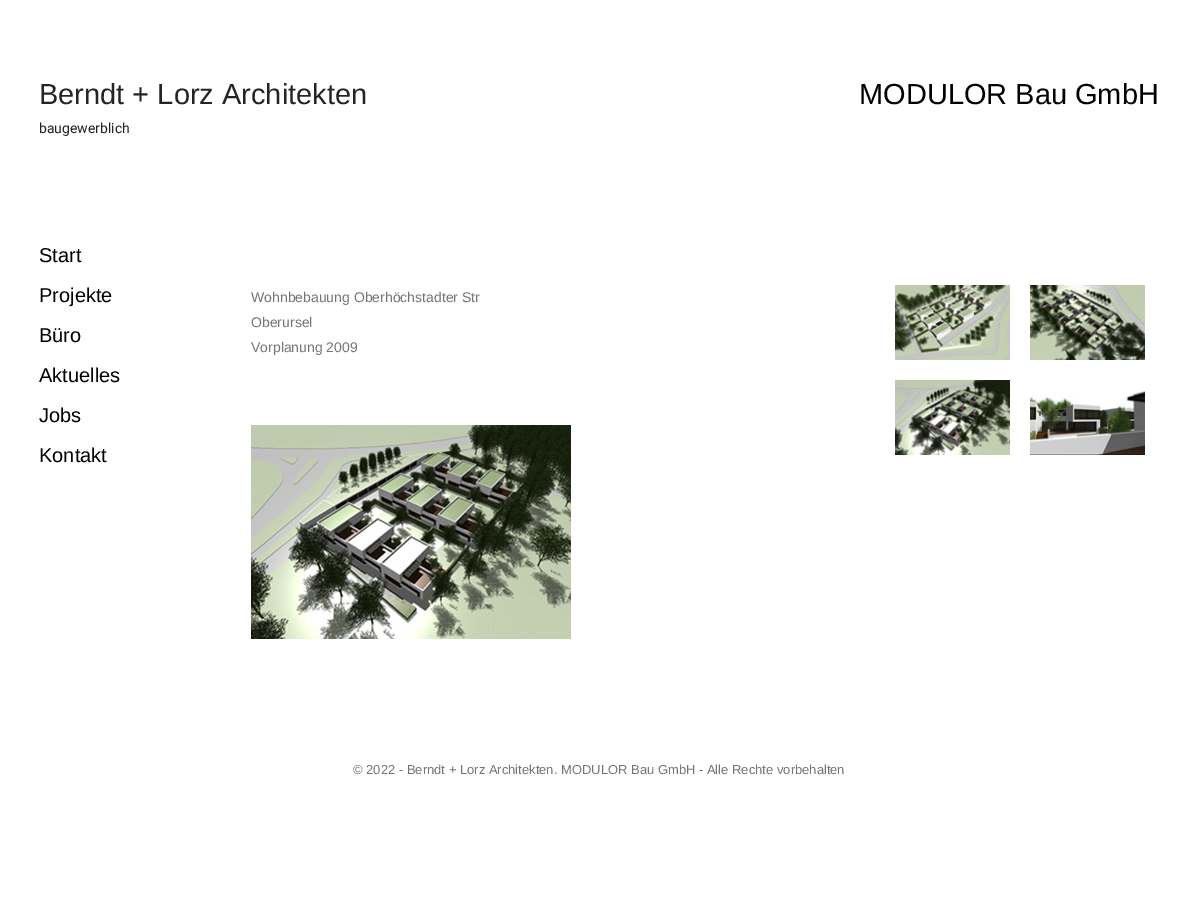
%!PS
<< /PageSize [1198 912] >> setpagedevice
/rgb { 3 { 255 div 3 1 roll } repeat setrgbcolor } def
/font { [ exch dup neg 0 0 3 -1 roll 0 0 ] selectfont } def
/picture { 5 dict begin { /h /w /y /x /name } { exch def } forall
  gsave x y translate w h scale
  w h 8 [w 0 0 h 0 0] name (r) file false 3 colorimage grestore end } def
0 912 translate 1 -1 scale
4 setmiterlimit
255 255 255 rgb
0 0 1198 912 rectfill
(img/1.rgb) 251 425 320 214 picture
(img/2.rgb) 895 285 115 75 picture
(img/3.rgb) 895 380 115 75 picture
(img/4.rgb) 1030 285 115 75 picture
(img/5.rgb) 1030 390 115 65 picture
/LiberationSans-Regular 29 font
36 36 36 rgb
39 104 moveto (Berndt + Lorz Architekten) show
/Roboto-Regular 14 font
39 133 moveto (baugewerblich) show
/LiberationSans-Regular 29 font
0 0 0 rgb
859 104 moveto (MODULOR Bau GmbH) show
/LiberationSans-Regular 20 font
[
  [(Start) 39 262]
  [(Projekte) 39 302]
  [(Büro) 39 342]
  [(Aktuelles) 39 382]
  [(Jobs) 39 422]
  [(Kontakt) 39 462]
] { aload pop moveto show } forall
/LiberationSans-Regular 14 font
117 116 116 rgb
[
  [(Wohnbebauung Oberhöchstadter Str) 251 302]
  [(Oberursel) 251 327]
  [(Vorplanung 2009) 251 352]
] { aload pop moveto show } forall
/LiberationSans-Regular 13 font
353 774 moveto (© 2022 - Berndt + Lorz Architekten. MODULOR Bau GmbH - Alle Rechte vorbehalten) show
showpage
